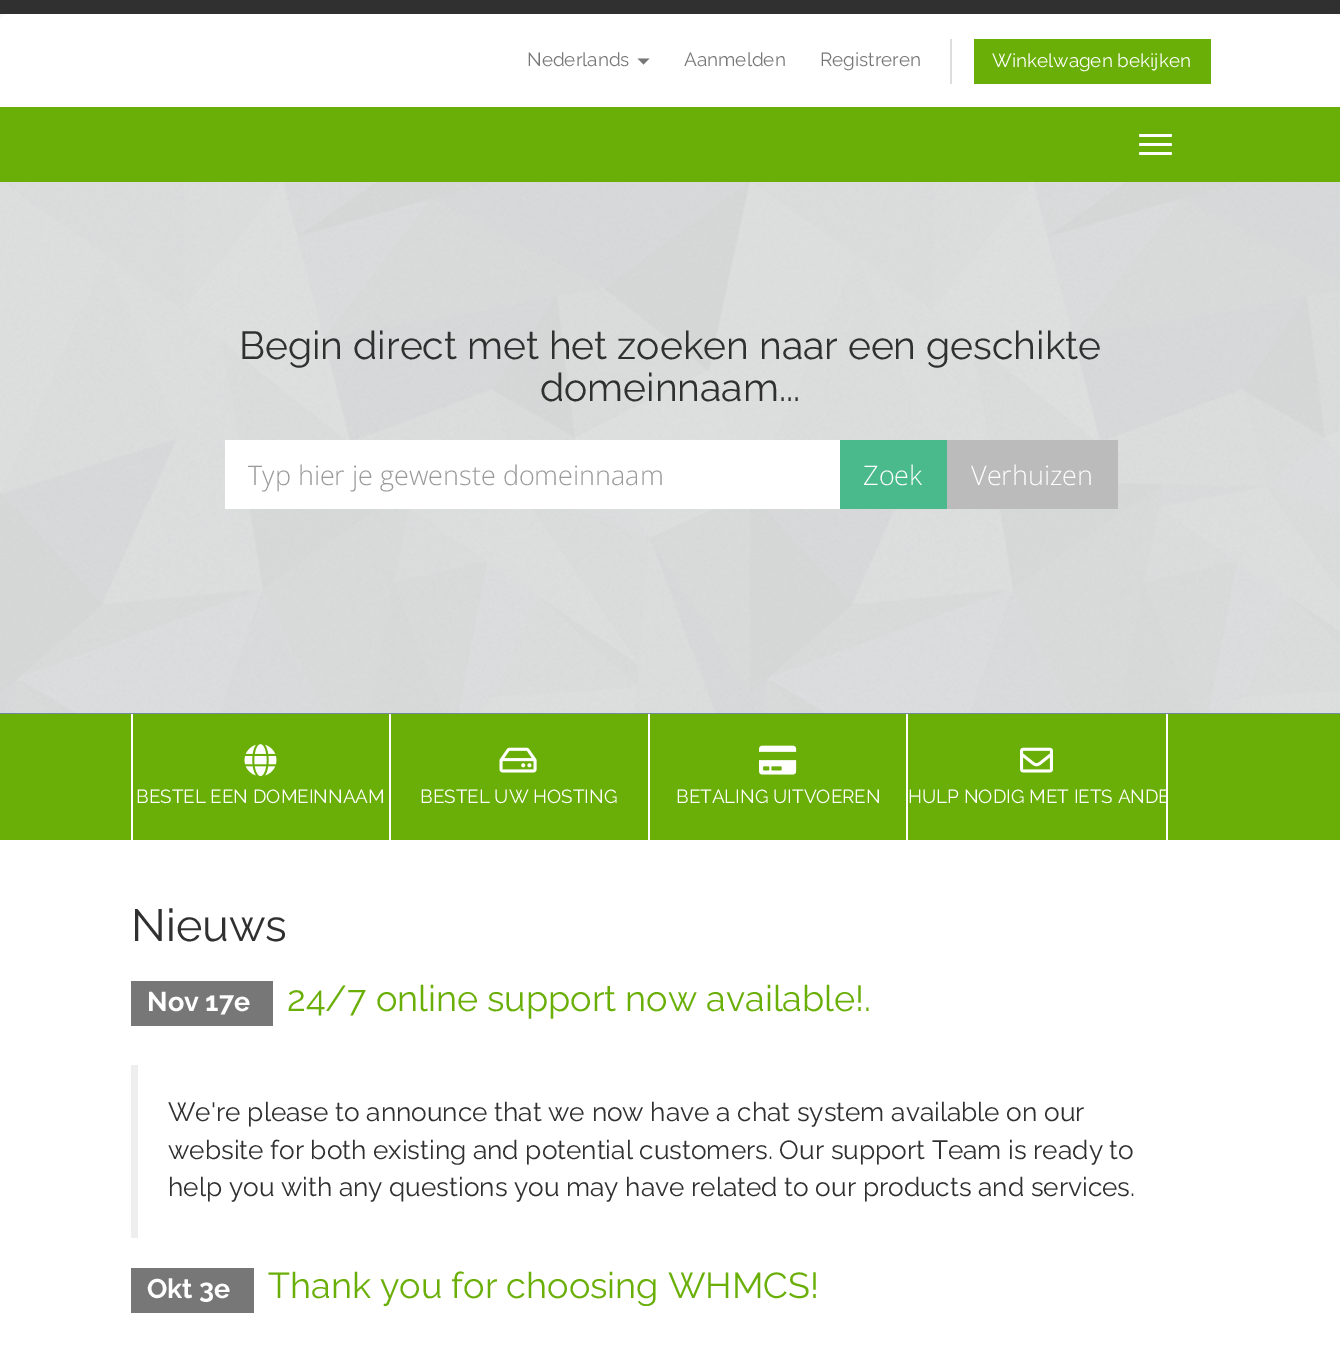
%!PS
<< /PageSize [1340 1346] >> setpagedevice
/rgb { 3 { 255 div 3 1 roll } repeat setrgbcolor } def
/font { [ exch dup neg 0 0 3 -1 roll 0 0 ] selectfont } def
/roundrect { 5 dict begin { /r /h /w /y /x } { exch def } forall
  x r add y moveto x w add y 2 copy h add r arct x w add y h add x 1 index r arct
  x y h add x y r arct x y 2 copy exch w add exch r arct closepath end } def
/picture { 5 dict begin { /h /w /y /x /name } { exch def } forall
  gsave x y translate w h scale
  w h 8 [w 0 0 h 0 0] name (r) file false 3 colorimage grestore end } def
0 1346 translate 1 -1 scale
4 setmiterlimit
248 248 248 rgb
0 0 1340 1346 rectfill
48 48 48 rgb
0 0 1340 14 rectfill
255 255 255 rgb
8 14 moveto 1333 14 lineto 1337.5 14 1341 17.5 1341 22 curveto 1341 107 lineto 0 107 lineto 0 22 lineto 0 17.5 3.5 14 8 14 curveto closepath fill
119 119 119 rgb
637.5 58.5 moveto 649.5 58.5 lineto 643.5 64.5 lineto closepath fill
[
  [950 39 2 45 221 221 221]
  [974 39 237 45 106 175 8]
  [0 107 1340 75 106 175 8]
] { aload pop rgb rectfill } forall
255 255 255 rgb
1139 134 33 3 1.5 roundrect fill
1139 143 33 3 1.5 roundrect fill
1139 152 33 3 1.5 roundrect fill
4 61 95 rgb
0 713 1340 1 rectfill
(img/1.rgb) 0 182 1340 532 picture
[
  [225 440 615 69 255 255 255]
  [840 440 107 69 74 185 139]
  [947 440 171 69 187 187 187]
  [0 714 1340 126 106 175 8]
  [389 714 2 126 255 255 255]
  [131 714 2 126 255 255 255]
] { aload pop rgb rectfill } forall
(img/2.rgb) 244 744 33 33 picture
648 714 2 126 rectfill
(img/3.rgb) 499 747 38 26 picture
906 714 2 126 rectfill
(img/4.rgb) 759 745 38 30 picture
1166 714 2 126 rectfill
(img/5.rgb) 1020 747 33 26 picture
[
  [0 840 1340 506 255 255 255]
  [131 981 142 45 119 119 119]
  [131 1065 7 173 238 238 238]
  [131 1268 123 45 119 119 119]
] { aload pop rgb rectfill } forall
/Raleway-Regular 18.9 font
[
  [(Nederlands) 527 66]
  [(Aanmelden) 684 66]
  [(Registreren) 820 66]
] { aload pop moveto show } forall
255 255 255 rgb
992 67 moveto (Winkelwagen bekijken) show
/Raleway-Regular 39 font
48 48 48 rgb
239 359 moveto (Begin direct met het zoeken naar een geschikte) show
540 401 moveto (domeinnaam...) show
/OpenSans-Light 27 font
153 153 153 rgb
248 485 moveto (Typ hier je gewenste domeinnaam) show
255 255 255 rgb
863 485 moveto (Zoek) show
971 485 moveto (Verhuizen) show
/Raleway-Regular 18.9 font
[
  [(BESTEL EEN DOMEINNAAM) 136 803]
  [(BESTEL UW HOSTING) 420 803]
  [(BETALING UITVOEREN) 676 803]
] { aload pop moveto show } forall
gsave
908 714 258 126 rectclip
908 803 moveto (HULP NODIG MET IETS ANDE) show
grestore
/Raleway-Regular 45 font
48 48 48 rgb
131 941 moveto (Nieuws) show
/Raleway-Bold 27 font
255 255 255 rgb
147 1011 moveto (Nov 17e) show
/Raleway-Regular 36 font
106 175 8 rgb
287 1011 moveto (24/7 online support now available!.) show
/Raleway-Regular 26.25 font
48 48 48 rgb
[
  [(We're please to announce that we now have a chat system available on our) 168 1121]
  [(website for both existing and potential customers. Our support Team is ready to) 168 1159]
  [(help you with any questions you may have related to our products and services.) 168 1196]
] { aload pop moveto show } forall
/Raleway-Bold 27 font
255 255 255 rgb
147 1298 moveto (Okt 3e) show
/Raleway-Regular 36 font
106 175 8 rgb
268 1298 moveto (Thank you for choosing WHMCS!) show
showpage
